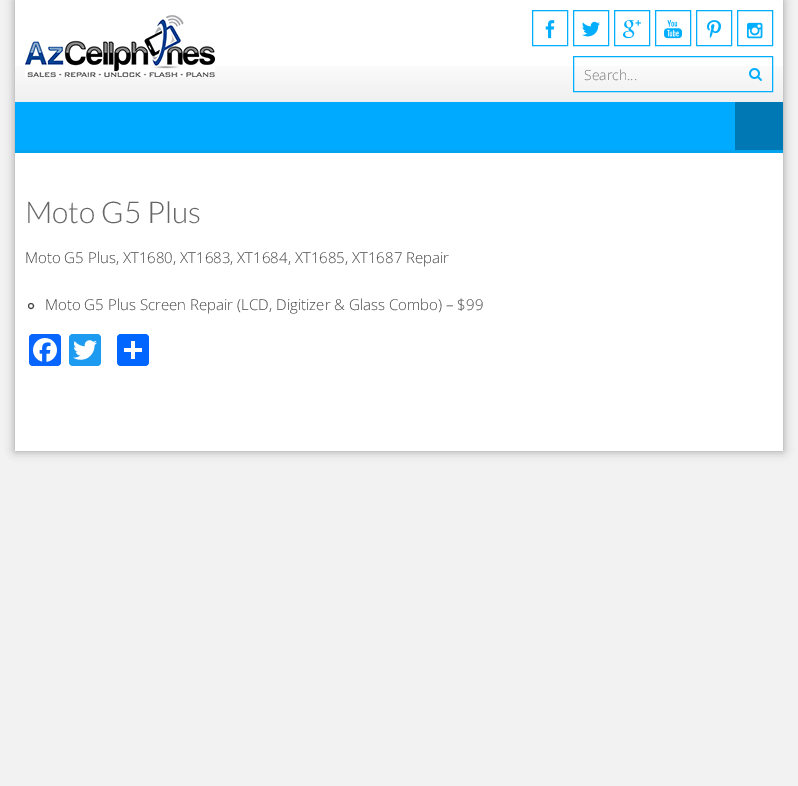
%!PS
<< /PageSize [798 786] /PageUsesTransparency true >> setpagedevice
/rgb { 3 { 255 div 3 1 roll } repeat setrgbcolor } def
/font { [ exch dup neg 0 0 3 -1 roll 0 0 ] selectfont } def
/alpha { dup .setfillconstantalpha .setstrokeconstantalpha } def
/circle { newpath 0 360 arc closepath } def
/roundrect { 5 dict begin { /r /h /w /y /x } { exch def } forall
  x r add y moveto x w add y 2 copy h add r arct x w add y h add x 1 index r arct
  x y h add x y r arct x y 2 copy exch w add exch r arct closepath end } def
/shadow { 12 dict begin { /a /b /q /h /w /y /x } { exch def } forall gsave /was 0 def
  9 -2 -9 { dup b mul 4 div /e exch def 1 sub .425 mul 2.718 exch exp 1 add a .99 .min exch div /now exch def
    1 1 now sub 1 was sub div sub alpha /was now def
    w h .min e 2 mul add 0 gt { x e sub y e sub w e 2 mul add h e 2 mul add
      q e add b .6 mul add w h .min 2 div e add .min 0 .max roundrect fill } if } for grestore end } def
/picture { 5 dict begin { /h /w /y /x /name } { exch def } forall
  gsave x y translate w h scale
  w h 8 [w 0 0 h 0 0] name (r) file false 3 colorimage grestore end } def
0 .pushpdf14devicefilter
0 786 translate 1 -1 scale
4 setmiterlimit
242 242 242 rgb
0 0 798 786 rectfill
153 153 153 rgb
15 0 768 451 0 5 1 shadow
255 255 255 rgb
15 0 768 451 rectfill
(img/1.rgb) 15 66 768 36 picture
(img/2.rgb) 25 15 190 62 picture
1 174 253 rgb
532.5 10.5 35 35 rectstroke
(img/3.rgb) 545 20 10 19 picture
573.5 10.5 35 35 rectstroke
(img/4.rgb) 582 21 18 16 picture
614.5 10.5 35 35 rectstroke
(img/5.rgb) 623 20 18 19 picture
655.5 10.5 35 35 rectstroke
(img/6.rgb) 664 20 18 19 picture
696.5 10.5 35 35 rectstroke
(img/7.rgb) 707 20 14 19 picture
737.5 10.5 35 35 rectstroke
(img/8.rgb) 747 22 16 17 picture
573.5 56.5 199 35 rectstroke
(img/9.rgb) 749 68 13 13 picture
[
  [15 102 720 48 0 171 255]
  [15 150 768 3 4 163 237]
  [735 102 48 48 0 120 179]
] { aload pop rgb rectfill } forall
68 68 68 rgb
31 306 2.5 circle stroke
8 102 255 rgb
29 334 32 32 4 roundrect fill
(img/10.rgb) 33 338 24 24 picture
29 155 240 rgb
69 334 32 32 4 roundrect fill
(img/11.rgb) 73 340 24 20 picture
1 102 255 rgb
117 334 32 32 4 roundrect fill
255 255 255 rgb
131 341 4 18 rectfill
124 348 18 4 rectfill
/OpenSans-Light 14 font
117 117 117 rgb
584 80 moveto (Search...) show
/Lato-Light 30 font
102 102 102 rgb
25 223 moveto (Moto G5 Plus) show
/OpenSans-Light 15 font
68 68 68 rgb
25 263 moveto (Moto G5 Plus, XT1680, XT1683, XT1684, XT1685, XT1687 Repair) show
45 310 moveto (Moto G5 Plus Screen Repair \(LCD, Digitizer & Glass Combo\) – $99) show
.poppdf14devicefilter showpage
